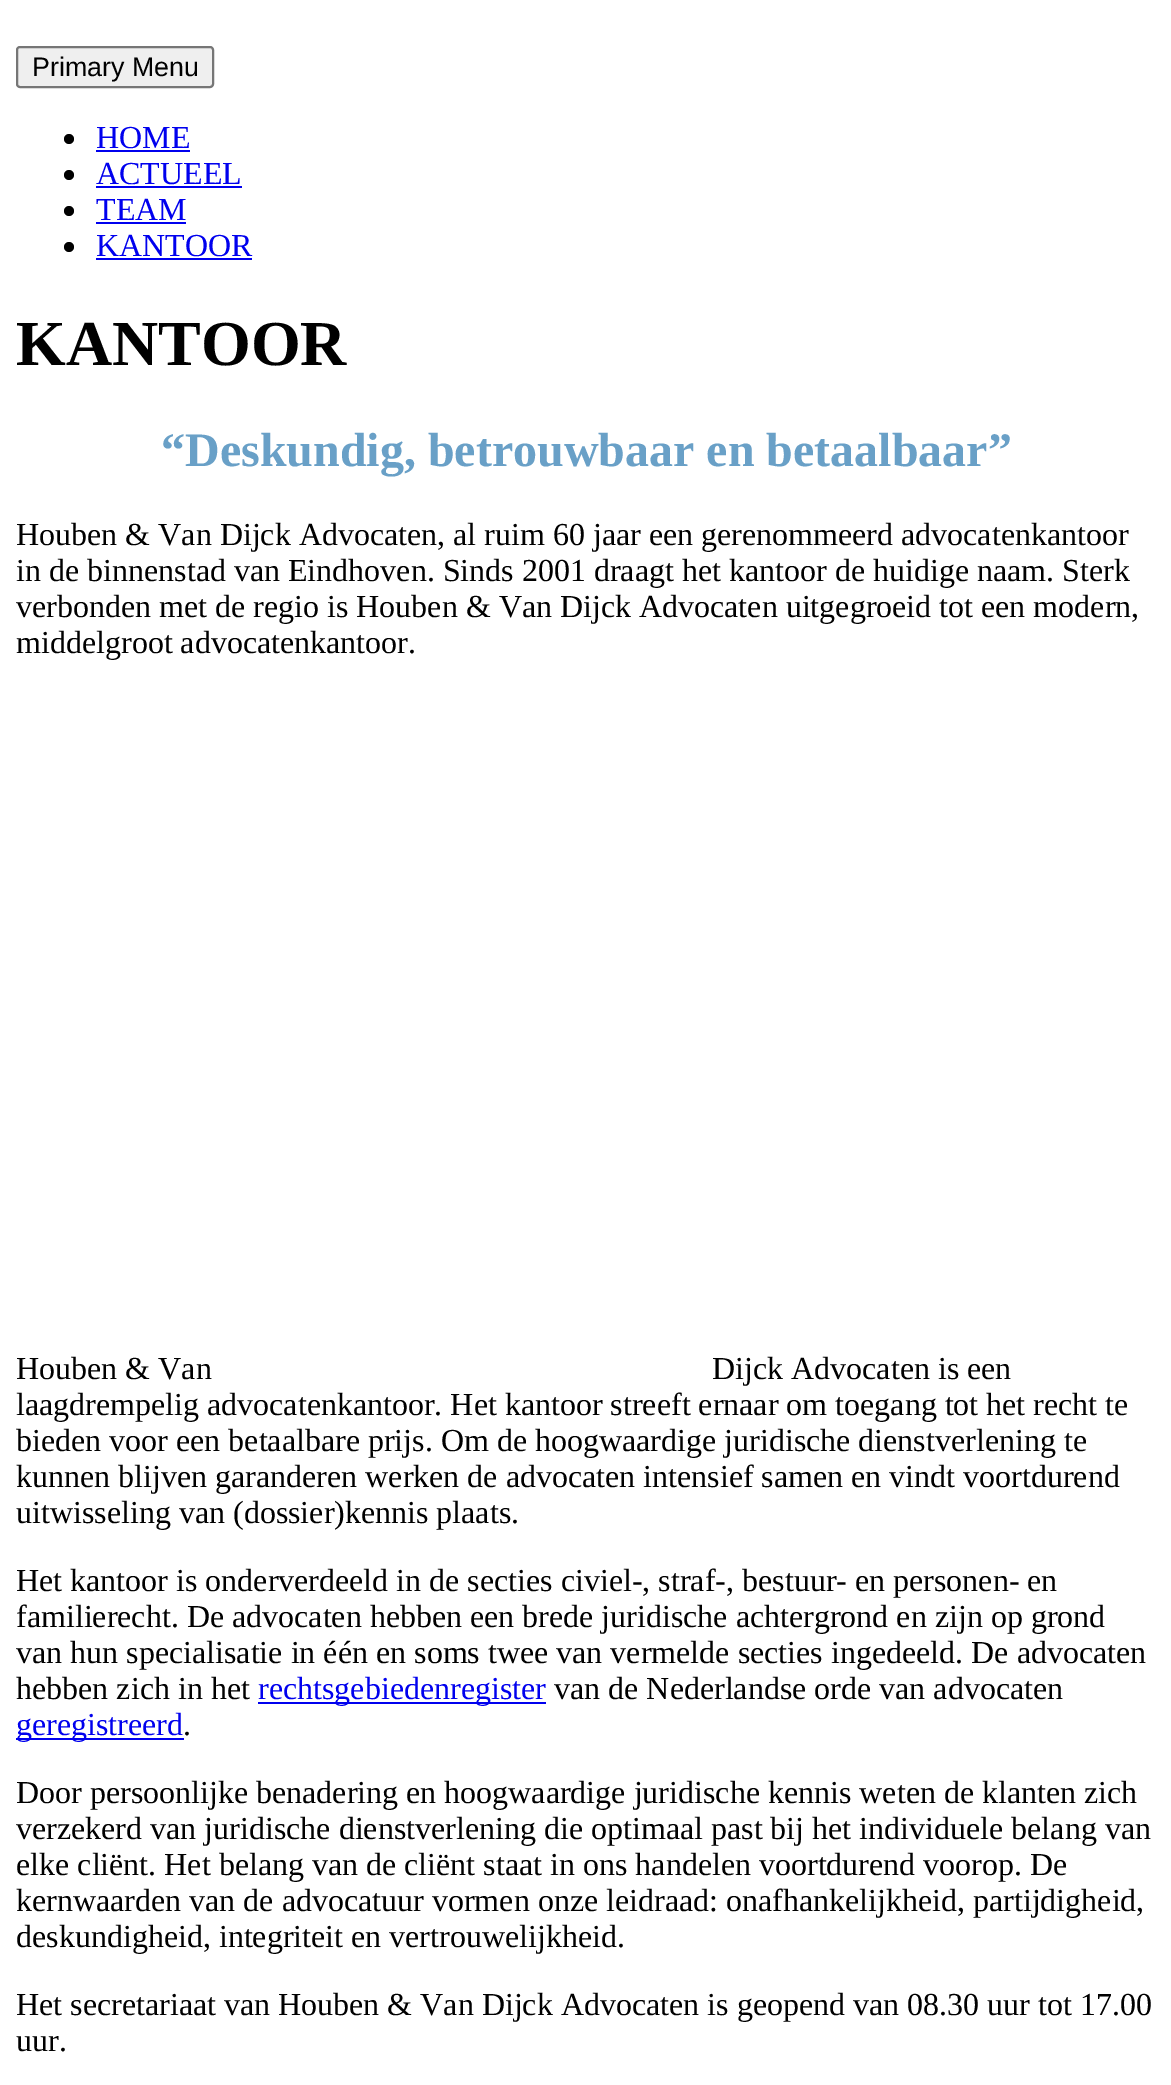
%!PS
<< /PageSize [1171 2085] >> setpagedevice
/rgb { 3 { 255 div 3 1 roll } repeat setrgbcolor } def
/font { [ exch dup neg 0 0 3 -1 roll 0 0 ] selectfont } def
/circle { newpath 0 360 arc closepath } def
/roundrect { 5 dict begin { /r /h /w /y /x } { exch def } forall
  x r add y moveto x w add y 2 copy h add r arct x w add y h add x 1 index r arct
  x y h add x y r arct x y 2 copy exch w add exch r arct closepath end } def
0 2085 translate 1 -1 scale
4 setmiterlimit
255 255 255 rgb
0 0 1171 2085 rectfill
239 239 239 rgb
17 47 196 40 3 roundrect gsave fill grestore
118 118 118 rgb
2 setlinewidth
stroke
0 0 0 rgb
69 139 5 circle fill
0 0 238 rgb
96 150 94 2 rectfill
0 0 0 rgb
69 175 5 circle fill
0 0 238 rgb
96 186 146 2 rectfill
0 0 0 rgb
69 211 5 circle fill
0 0 238 rgb
96 222 90 2 rectfill
0 0 0 rgb
69 247 5 circle fill
[
  [96 258 156 2 0 0 238]
  [258 1702 288 2 0 0 238]
  [16 1738 168 2 0 0 238]
] { aload pop rgb rectfill } forall
/LiberationSans-Regular 26.75 font
0 0 0 rgb
32 76 moveto (Primary Menu) show
/LiberationSerif-Regular 32 font
0 0 238 rgb
[
  [(HOME) 96 148]
  [(ACTUEEL) 96 184]
  [(TEAM) 96 220]
  [(KANTOOR) 96 256]
] { aload pop moveto show } forall
/LiberationSerif-Bold 64 font
0 0 0 rgb
16 365 moveto (KANTOOR) show
/LiberationSerif-Bold 48 font
105 160 199 rgb
161 466 moveto (“Deskundig, betrouwbaar en betaalbaar”) show
/LiberationSerif-Regular 32 font
0 0 0 rgb
[
  [(Houben & Van Dijck Advocaten, al ruim 60 jaar een gerenommeerd advocatenkantoor) 16 545]
  [(in de binnenstad van Eindhoven. Sinds 2001 draagt het kantoor de huidige naam. Sterk) 16 581]
  [(verbonden met de regio is Houben & Van Dijck Advocaten uitgegroeid tot een modern,) 16 617]
  [(middelgroot advocatenkantoor.) 16 653]
  [(Houben & Van) 16 1379]
  [(Dijck Advocaten is een) 712 1379]
  [(laagdrempelig advocatenkantoor. Het kantoor streeft ernaar om toegang tot het recht te) 16 1415]
  [(bieden voor een betaalbare prijs. Om de hoogwaardige juridische dienstverlening te) 16 1451]
  [(kunnen blijven garanderen werken de advocaten intensief samen en vindt voortdurend) 16 1487]
  [(uitwisseling van \(dossier\)kennis plaats.) 16 1523]
  [(Het kantoor is onderverdeeld in de secties civiel-, straf-, bestuur- en personen- en) 16 1591]
  [(familierecht. De advocaten hebben een brede juridische achtergrond en zijn op grond) 16 1627]
  [(van hun specialisatie in één en soms twee van vermelde secties ingedeeld. De advocaten) 16 1663]
  [(hebben zich in het) 16 1699]
] { aload pop moveto show } forall
0 0 238 rgb
258 1699 moveto (rechtsgebiedenregister) show
0 0 0 rgb
554 1699 moveto (van de Nederlandse orde van advocaten) show
0 0 238 rgb
16 1735 moveto (geregistreerd) show
0 0 0 rgb
[
  [(.) 183 1735]
  [(Door persoonlijke benadering en hoogwaardige juridische kennis weten de klanten zich) 16 1803]
  [(verzekerd van juridische dienstverlening die optimaal past bij het individuele belang van) 16 1839]
  [(elke cliënt. Het belang van de cliënt staat in ons handelen voortdurend voorop. De) 16 1875]
  [(kernwaarden van de advocatuur vormen onze leidraad: onafhankelijkheid, partijdigheid,) 16 1911]
  [(deskundigheid, integriteit en vertrouwelijkheid.) 16 1947]
  [(Het secretariaat van Houben & Van Dijck Advocaten is geopend van 08.30 uur tot 17.00) 16 2015]
  [(uur.) 16 2051]
] { aload pop moveto show } forall
showpage
